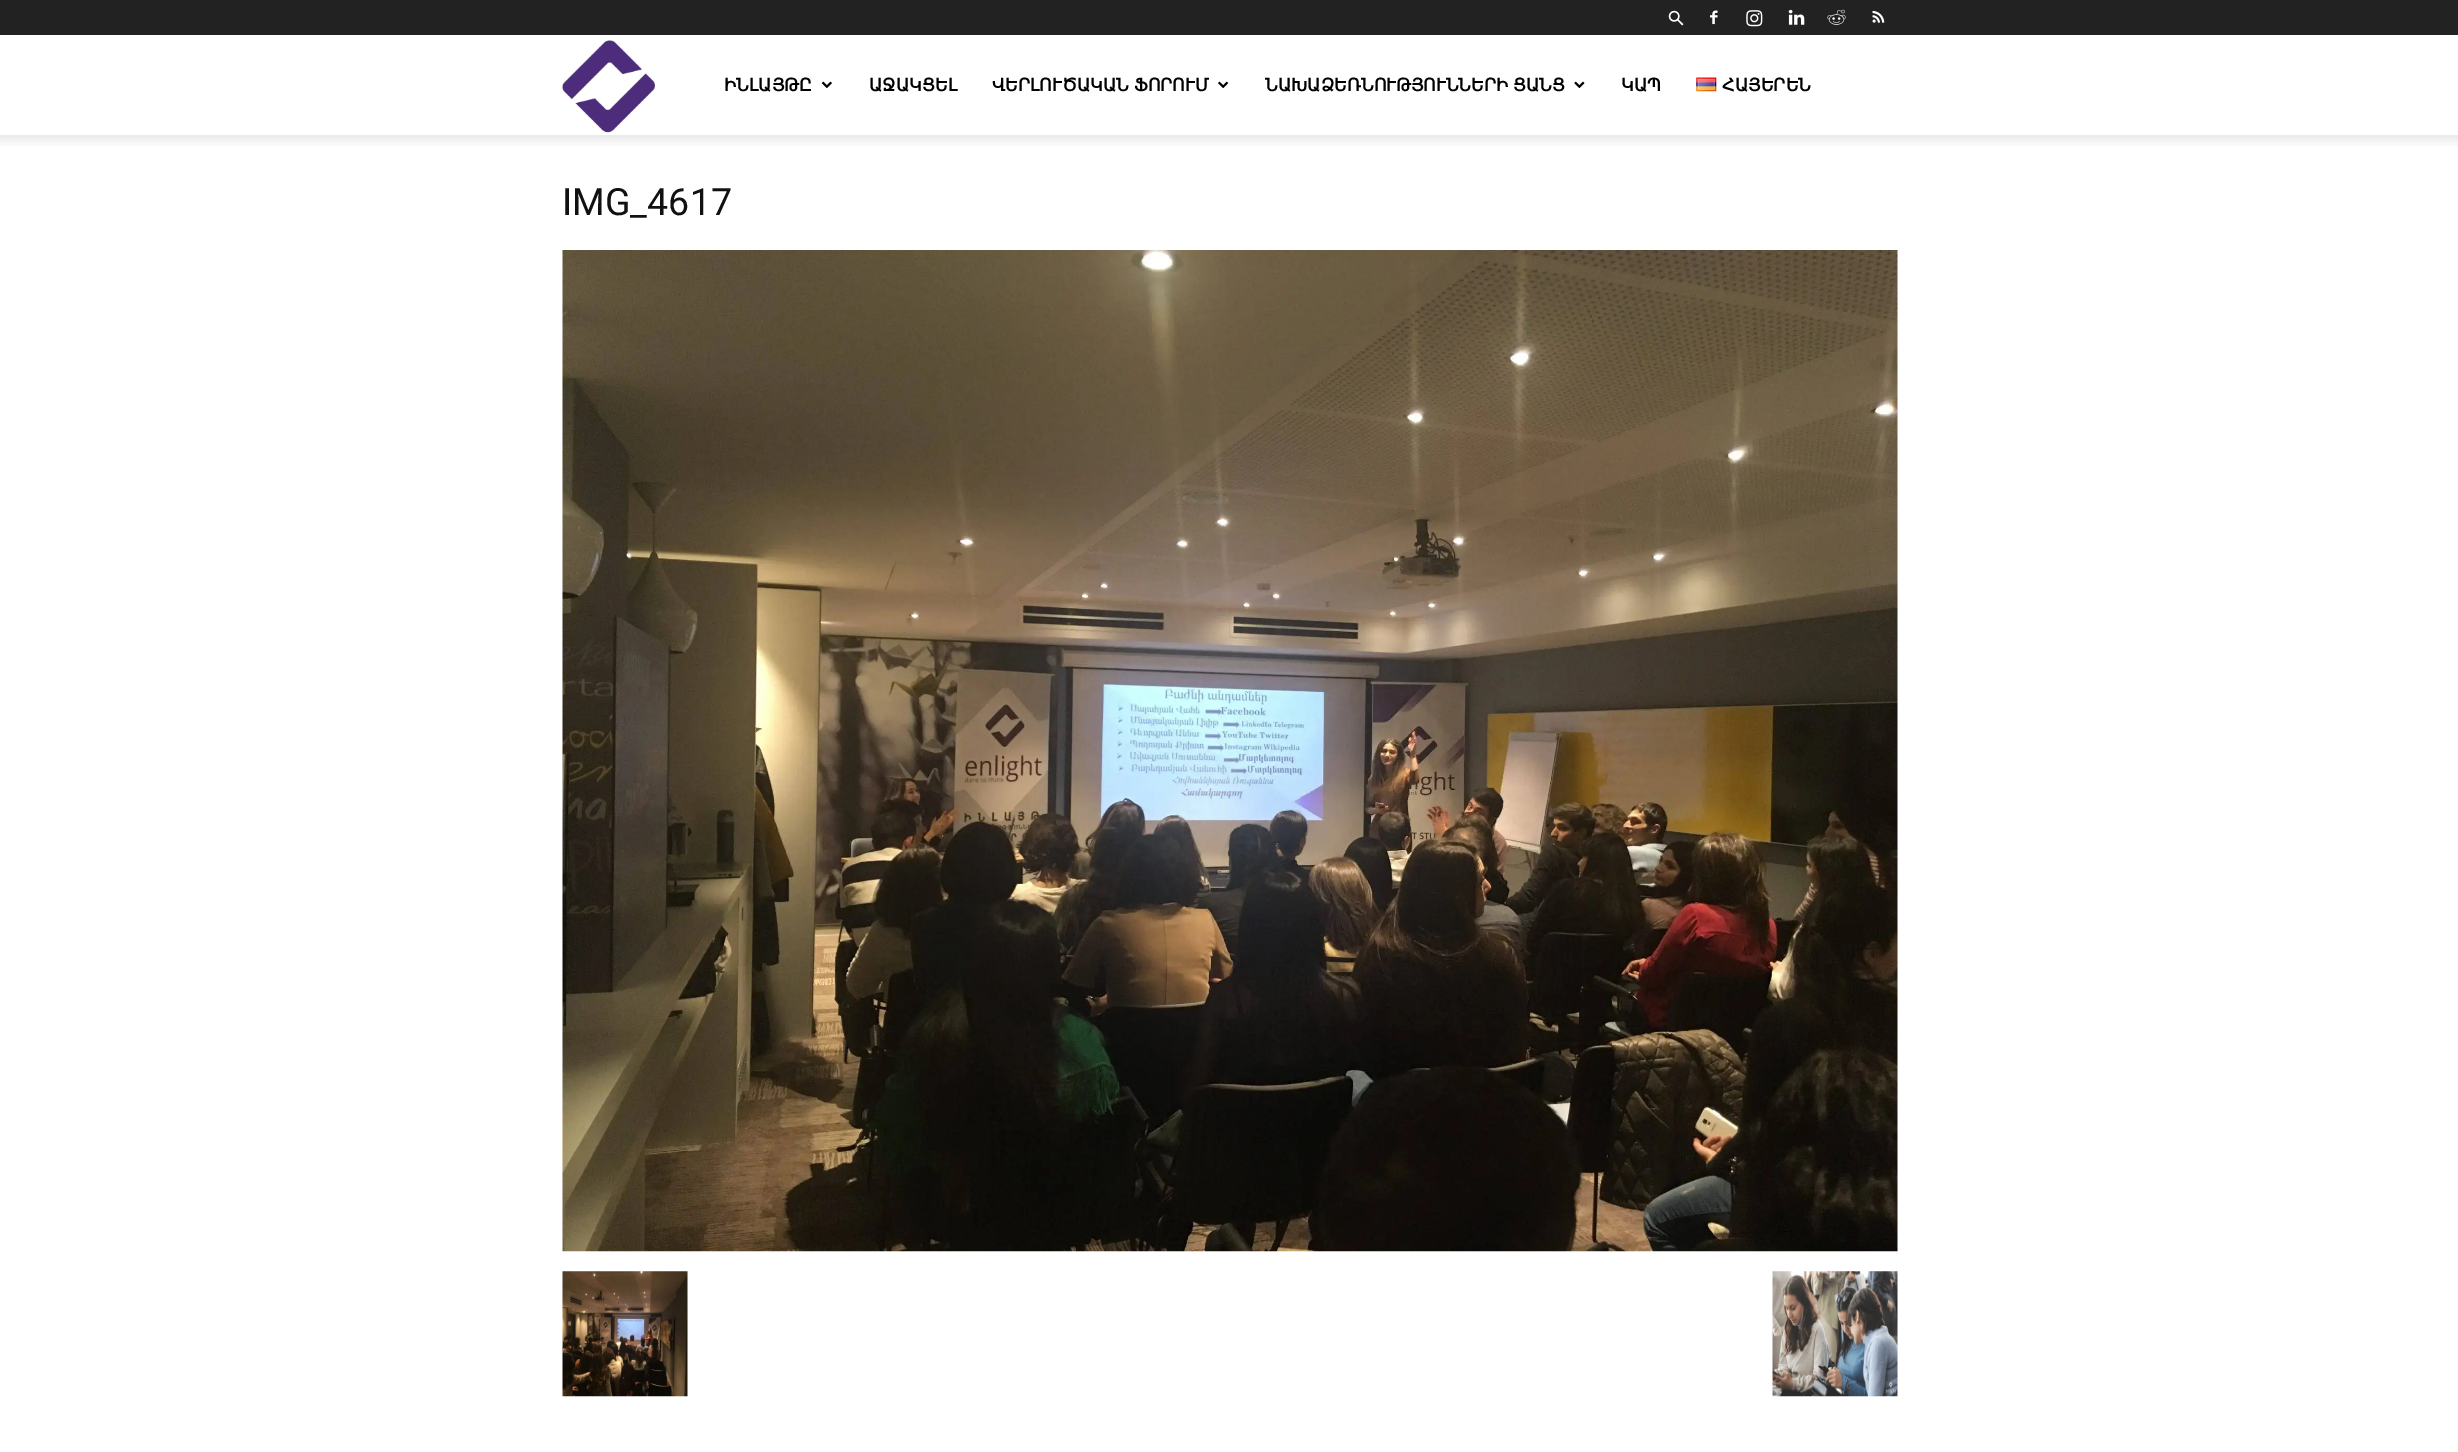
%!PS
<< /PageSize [2458 1452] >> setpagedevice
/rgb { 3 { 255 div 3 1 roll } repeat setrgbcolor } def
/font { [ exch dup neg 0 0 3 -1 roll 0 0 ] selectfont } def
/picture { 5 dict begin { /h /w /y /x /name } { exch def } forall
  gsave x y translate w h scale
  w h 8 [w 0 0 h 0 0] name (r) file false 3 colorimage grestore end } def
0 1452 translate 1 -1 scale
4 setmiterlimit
255 255 255 rgb
0 0 2458 1452 rectfill
34 34 34 rgb
0 0 2458 35 rectfill
(img/1.rgb) 1668 10 16 16 picture
(img/2.rgb) 1710 10 8 15 picture
(img/3.rgb) 1746 10 17 17 picture
(img/4.rgb) 1788 9 17 16 picture
(img/5.rgb) 1827 9 19 16 picture
(img/6.rgb) 1872 10 13 13 picture
(img/7.rgb) 562 40 93 93 picture
(img/8.rgb) 821 81 11 8 picture
(img/9.rgb) 1218 81 11 8 picture
(img/10.rgb) 1574 81 11 8 picture
(img/11.rgb) 1696 77 21 15 picture
(img/12.rgb) 0 135 2458 11 picture
(img/13.rgb) 562 250 1336 1002 picture
(img/14.rgb) 562 1271 126 126 picture
(img/15.rgb) 1772 1271 126 126 picture
/DejaVuSans-Bold 17.5 font
0 0 0 rgb
724 91 moveto (ԻՆԼԱՅԹԸ) show
869 91 moveto (ԱՋԱԿՑԵԼ) show
992 91 moveto -1 0 32 (ՎԵՐԼՈՒԾԱԿԱՆ ՖՈՐՈՒՄ) widthshow
1265 91 moveto -1 0 32 (ՆԱԽԱՁԵՌՆՈՒԹՅՈՒՆՆԵՐԻ ՑԱՆՑ) widthshow
1621 91 moveto (ԿԱՊ) show
1722 91 moveto (ՀԱՅԵՐԵՆ) show
/Roboto-Regular 37.5 font
17 17 17 rgb
562 215 moveto (IMG_4617) show
showpage
